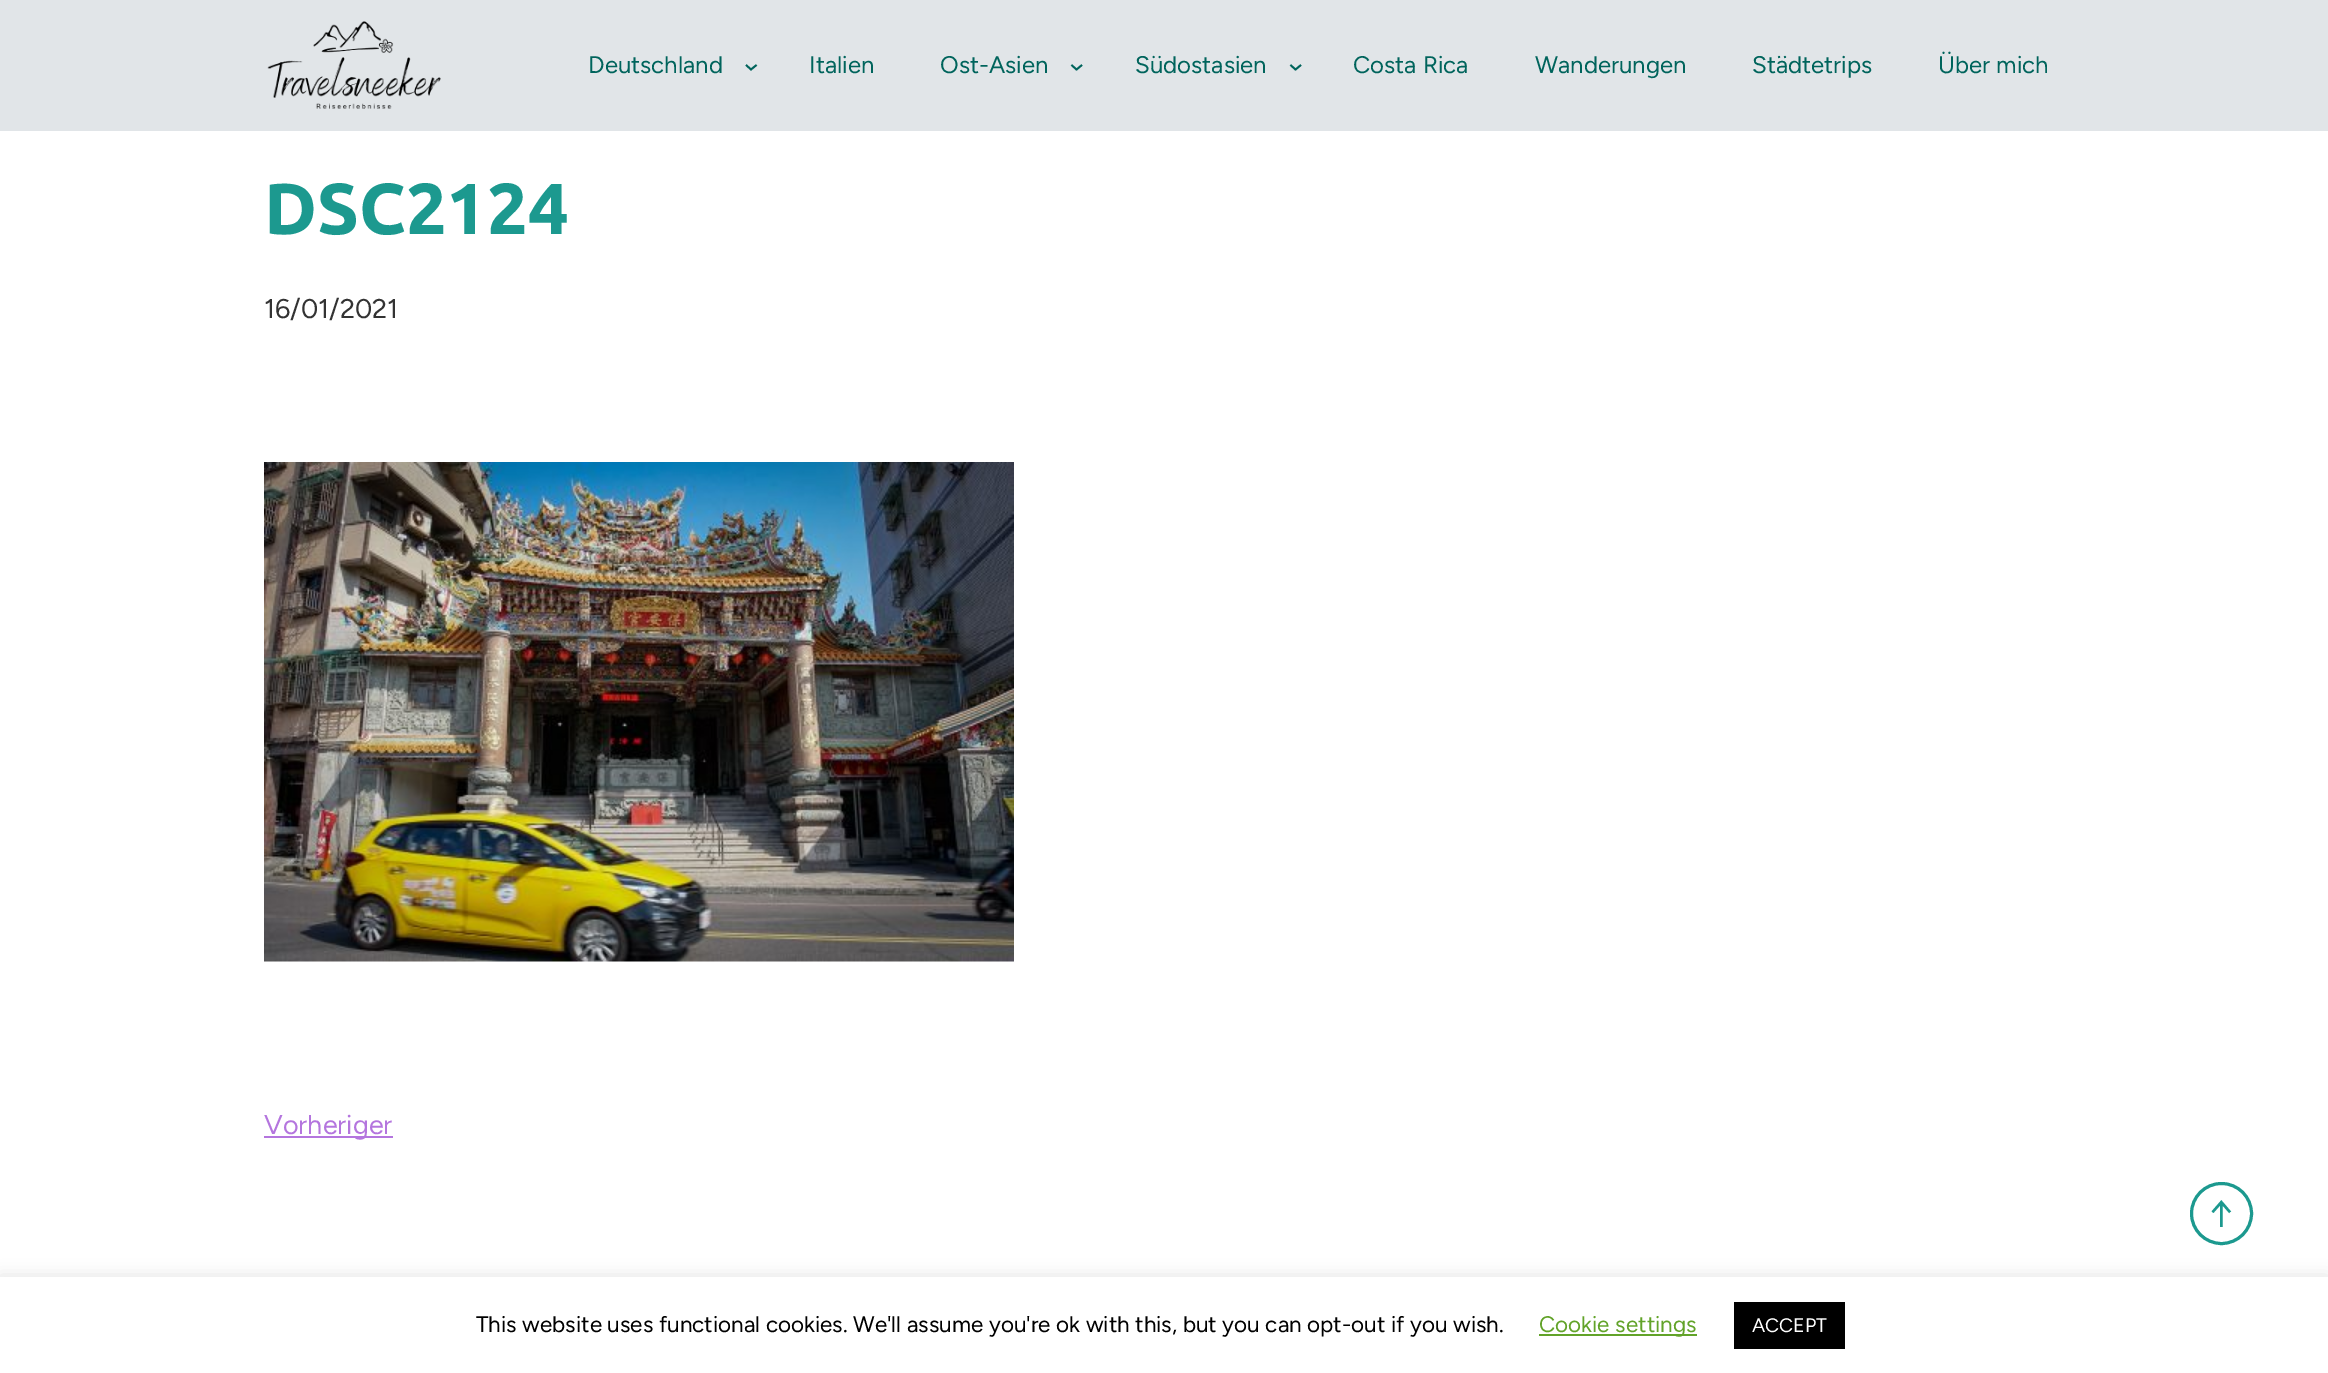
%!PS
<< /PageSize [2328 1373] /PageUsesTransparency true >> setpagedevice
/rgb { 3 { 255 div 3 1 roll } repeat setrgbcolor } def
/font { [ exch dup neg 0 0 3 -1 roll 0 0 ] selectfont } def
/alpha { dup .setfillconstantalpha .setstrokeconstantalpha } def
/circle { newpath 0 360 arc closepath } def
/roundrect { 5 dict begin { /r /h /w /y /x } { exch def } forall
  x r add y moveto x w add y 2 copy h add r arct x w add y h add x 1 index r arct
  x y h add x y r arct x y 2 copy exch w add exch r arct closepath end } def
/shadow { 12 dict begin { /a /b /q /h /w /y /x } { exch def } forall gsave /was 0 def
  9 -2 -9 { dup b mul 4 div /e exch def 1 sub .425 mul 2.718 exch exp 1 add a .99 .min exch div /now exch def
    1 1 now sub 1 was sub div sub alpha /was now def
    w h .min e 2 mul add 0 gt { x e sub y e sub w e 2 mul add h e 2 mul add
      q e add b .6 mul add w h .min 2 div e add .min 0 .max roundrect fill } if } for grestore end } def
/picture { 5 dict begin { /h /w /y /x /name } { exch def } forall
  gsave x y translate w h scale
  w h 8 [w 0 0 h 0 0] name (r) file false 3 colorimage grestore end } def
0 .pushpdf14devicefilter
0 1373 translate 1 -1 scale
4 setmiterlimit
255 255 255 rgb
0 0 2328 1373 rectfill
225 229 232 rgb
0 0 2328 131 rectfill
(img/1.rgb) 267 21 174 88 picture
0 100 92 rgb
1.8 setlinewidth
746 65 moveto 751 69.5 lineto 756.5 65 lineto stroke
1071.5 65 moveto 1076.5 69.5 lineto 1082 65 lineto stroke
1290.5 65 moveto 1295.5 69.5 lineto 1301 65 lineto stroke
(img/2.rgb) 264 462 750 500 picture
180 117 222 rgb
264 1136 129 2 rectfill
28 153 143 rgb
3 setlinewidth
2221.5 1213.5 30 circle stroke
172 171 171 rgb
0 1275 2328 98 0 7.5 0.3 shadow
[
  [0 1277 2328 96 255 255 255]
  [1539 1334 158 2 98 163 41]
  [1734 1302 111 47 0 0 0]
] { aload pop rgb rectfill } forall
/Figtree-Light 24 font
0 100 92 rgb
[
  [(Deutschland) 588 73]
  [(Italien) 809 73]
  [(Ost-Asien) 940 73]
  [(Südostasien) 1135 73]
  [(Costa Rica) 1353 73]
  [(Wanderungen) 1535 73]
  [(Städtetrips) 1752 73]
  [(Über mich) 1938 73]
] { aload pop moveto show } forall
/Ubuntu-Bold 72 font
28 153 143 rgb
264 234 moveto (DSC2124) show
/Figtree-Light 27 font
51 51 51 rgb
264 318 moveto (16/01/2021) show
180 117 222 rgb
264 1134 moveto (Vorheriger) show
/Figtree-Light 38 font
28 153 143 rgb
2208 1227 moveto (↑) show
/Figtree-Light 22.5 font
0 0 0 rgb
476 1332 moveto (This website uses functional cookies. We'll assume you're ok with this, but you can opt-out if you wish.) show
98 163 41 rgb
1539 1332 moveto (Cookie settings) show
/Figtree-Light 19.5 font
255 255 255 rgb
1752 1332 moveto (ACCEPT) show
.poppdf14devicefilter showpage
